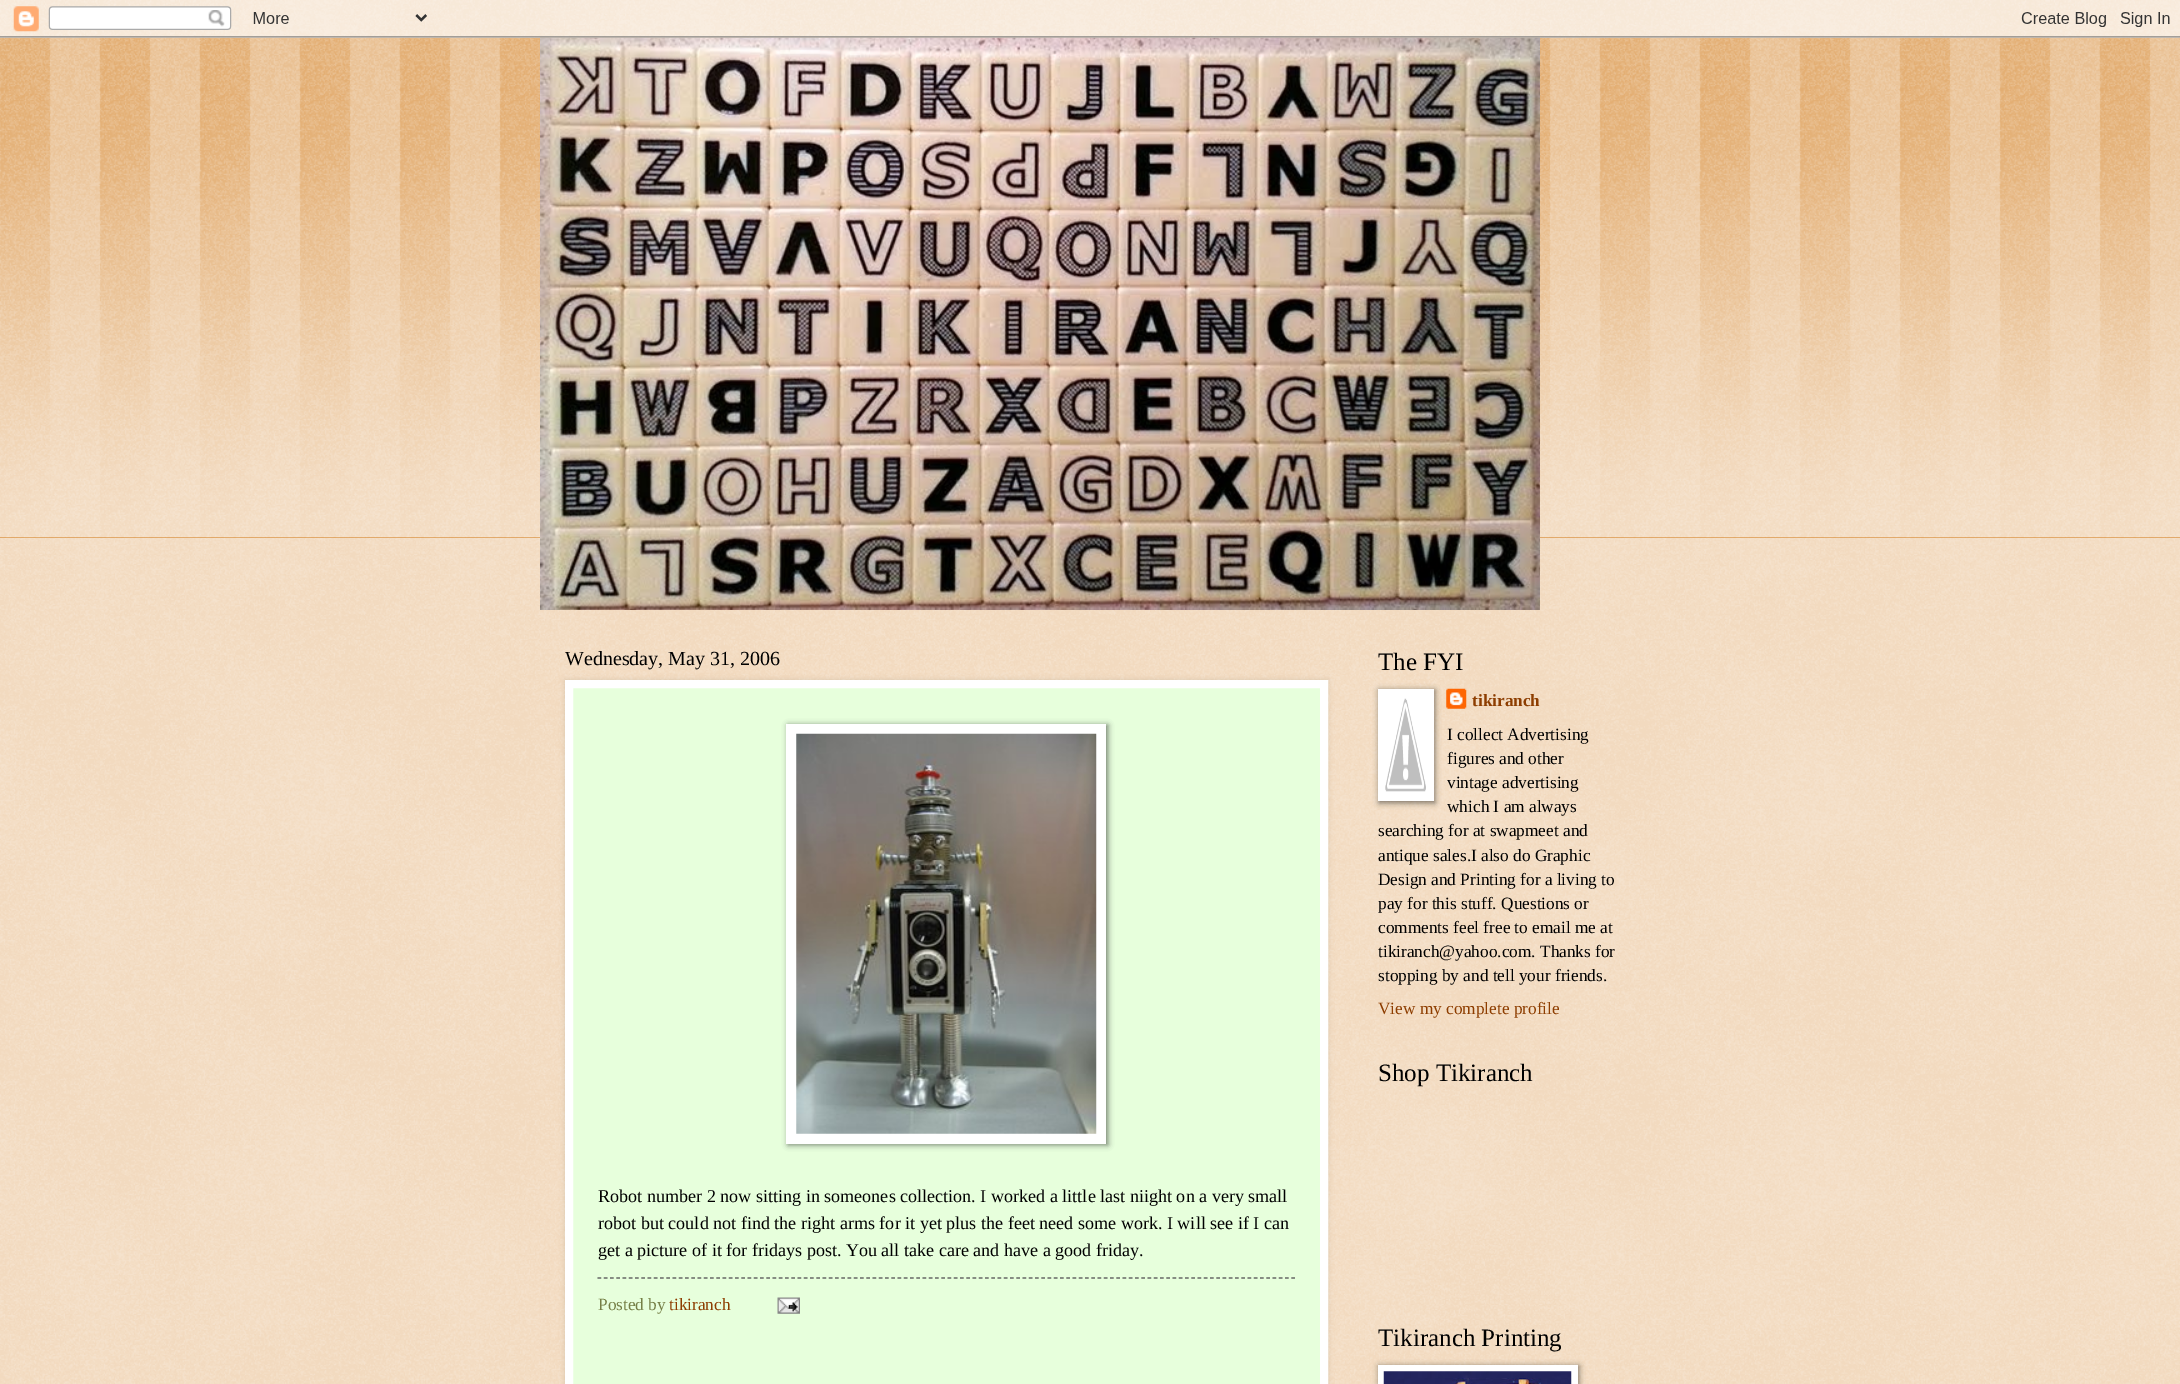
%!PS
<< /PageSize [2180 1384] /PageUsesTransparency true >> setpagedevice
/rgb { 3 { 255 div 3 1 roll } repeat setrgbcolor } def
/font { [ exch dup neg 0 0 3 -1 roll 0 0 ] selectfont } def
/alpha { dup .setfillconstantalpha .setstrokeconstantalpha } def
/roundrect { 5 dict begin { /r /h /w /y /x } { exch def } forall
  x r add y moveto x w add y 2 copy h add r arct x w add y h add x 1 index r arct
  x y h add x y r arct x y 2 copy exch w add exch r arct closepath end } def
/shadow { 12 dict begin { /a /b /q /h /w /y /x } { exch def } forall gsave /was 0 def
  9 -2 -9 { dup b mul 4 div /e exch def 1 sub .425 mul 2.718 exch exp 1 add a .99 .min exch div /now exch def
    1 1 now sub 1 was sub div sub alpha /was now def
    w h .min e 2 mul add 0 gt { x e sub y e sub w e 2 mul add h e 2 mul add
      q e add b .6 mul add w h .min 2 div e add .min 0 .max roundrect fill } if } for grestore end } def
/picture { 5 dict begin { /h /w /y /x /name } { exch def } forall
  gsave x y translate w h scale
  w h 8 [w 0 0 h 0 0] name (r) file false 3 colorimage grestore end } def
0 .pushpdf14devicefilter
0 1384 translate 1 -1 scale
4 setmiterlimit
255 255 255 rgb
0 0 2180 1384 rectfill
(img/1.rgb) 0 0 2180 1384 picture
207 116 14 rgb
0 38 2180 500 rectfill
(img/3.rgb) 0 37 2180 501 picture
(img/4.rgb) 540 37 1000 573 picture
(img/2.rgb) 0 0 2180 38 picture
0 0 0 rgb
565 680 763 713 0 3 0.1 shadow
231 255 220 rgb
569 684 moveto 1324 684 lineto 1324 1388 lineto 569 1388 lineto closepath gsave fill grestore
255 255 255 rgb
8 setlinewidth
stroke
0 0 0 rgb
788 725 320 420 0 3 0.5 shadow
255 255 255 rgb
786 724 320 420 rectfill
(img/5.rgb) 796 733 301 401 picture
99 99 99 rgb
1.2 setlinewidth
[3.75 2.5] 0 setdash
597.5 1278 moveto 1295 1278 lineto stroke
(img/6.rgb) 777 1297 23 17 picture
0 0 0 rgb
1379 690 56 113 0 3 0.5 shadow
255 255 255 rgb
1378 689 56 112 rectfill
(img/7.rgb) 1385 698 41 94 picture
(img/8.rgb) 1446 688 21 21 picture
0 0 0 rgb
1379 1366 200 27 0 3 0.5 shadow
255 255 255 rgb
1378 1365 200 19 rectfill
(img/9.rgb) 1383 1371 189 13 picture
/LiberationSerif-Regular 20 font
0 0 0 rgb
565 665 moveto (Wednesday, May 31, 2006) show
/LiberationSerif-Regular 18.1 font
[
  [(Robot number 2 now sitting in someones collection. I worked a little last niight on a very small) 598 1202]
  [(robot but could not find the right arms for it yet plus the feet need some work. I will see if I can) 598 1229]
  [(get a picture of it for fridays post. You all take care and have a good friday.) 598 1256]
] { aload pop moveto show } forall
/LiberationSerif-Regular 17.25 font
117 127 70 rgb
598 1310 moveto (Posted by) show
141 61 0 rgb
669 1310 moveto (tikiranch) show
/LiberationSerif-Regular 25 font
0 0 0 rgb
1378 670 moveto (The FYI) show
/LiberationSerif-Bold 17.25 font
141 61 0 rgb
1472 706 moveto (tikiranch) show
/LiberationSerif-Regular 17.25 font
0 0 0 rgb
[
  [(I collect Advertising) 1447 740]
  [(figures and other) 1447 764]
  [(vintage advertising) 1447 788]
  [(which I am always) 1447 812]
  [(searching for at swapmeet and) 1378 836]
  [(antique sales.I also do Graphic) 1378 861]
  [(Design and Printing for a living to) 1378 885]
  [(pay for this stuff. Questions or) 1378 909]
  [(comments feel free to email me at) 1378 933]
  [(tikiranch@yahoo.com. Thanks for) 1378 957]
  [(stopping by and tell your friends.) 1378 981]
] { aload pop moveto show } forall
141 61 0 rgb
1378 1014 moveto (View my complete profile) show
/LiberationSerif-Regular 25 font
0 0 0 rgb
1378 1081 moveto (Shop Tikiranch) show
1378 1346 moveto (Tikiranch Printing) show
.poppdf14devicefilter showpage
